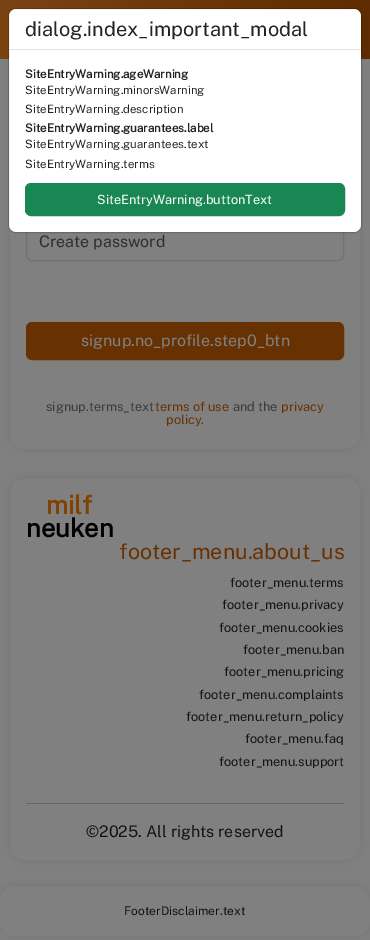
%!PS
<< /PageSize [370 940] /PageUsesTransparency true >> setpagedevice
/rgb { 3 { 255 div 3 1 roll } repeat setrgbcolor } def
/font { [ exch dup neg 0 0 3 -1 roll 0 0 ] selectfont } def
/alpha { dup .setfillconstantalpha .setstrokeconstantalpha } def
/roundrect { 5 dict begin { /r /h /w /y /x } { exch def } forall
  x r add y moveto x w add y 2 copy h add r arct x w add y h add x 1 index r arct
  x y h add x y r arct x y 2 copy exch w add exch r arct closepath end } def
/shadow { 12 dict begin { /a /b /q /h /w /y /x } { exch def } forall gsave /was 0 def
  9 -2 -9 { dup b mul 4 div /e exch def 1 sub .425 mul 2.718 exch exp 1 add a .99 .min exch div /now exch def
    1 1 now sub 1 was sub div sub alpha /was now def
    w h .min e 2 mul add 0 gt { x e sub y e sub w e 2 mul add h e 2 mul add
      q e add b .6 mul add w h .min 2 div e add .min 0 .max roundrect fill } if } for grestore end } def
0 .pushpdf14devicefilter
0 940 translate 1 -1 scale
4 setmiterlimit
128 128 128 rgb
0 0 370 940 rectfill
0 0 0 rgb
10 -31 350 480 16 5 0.1 shadow
128 128 128 rgb
10 -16 350 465 16 roundrect fill
gsave 0 0 moveto 370 0 lineto 370 59 lineto 0 59 lineto closepath clip newpath
<< /ShadingType 2 /ColorSpace /DeviceRGB /Coords [0 30 370 29] /Extend [true true] /Function << /FunctionType 2 /Domain [0 1] /C0 [0.478 0.263 0.071] /C1 [0.369 0.173 0] /N 1 >> >> shfill grestore
111 113 115 rgb
26.5 223.5 317 37 5.5 roundrect stroke
255 255 255 rgb
9 9 352 223 7 roundrect fill
0.18 alpha
0 0 0 rgb
8.5 8.5 353 224 7.5 roundrect stroke
1 alpha
222 226 230 rgb
9 49 352 1 rectfill
25 135 84 rgb
25.5 183.5 319 32 5.5 roundrect gsave fill grestore
stroke
103 49 2 rgb
26.5 322.5 317 37 5.5 roundrect gsave fill grestore
stroke
0 0 0 rgb
10 478 350 382 16 5 0.1 shadow
128 128 128 rgb
10 478 350 382 16 roundrect fill
100 101 101 rgb
26 803 318 1 rectfill
0 0 0 rgb
0 886 370 50 16 5 0.1 shadow
128 128 128 rgb
0 886 370 50 16 roundrect fill
/PublicSans-Thin 20 font
33 37 41 rgb
25 36 moveto (dialog.index_important_modal) show
/PublicSans-Bold 11.5 font
25 78 moveto (SiteEntryWarning.ageWarning) show
/PublicSans-Thin 11.5 font
25 94 moveto (SiteEntryWarning.minorsWarning) show
25 113 moveto (SiteEntryWarning.description) show
/PublicSans-Bold 11.5 font
25 132 moveto (SiteEntryWarning.guarantees.label) show
/PublicSans-Thin 11.5 font
25 148 moveto (SiteEntryWarning.guarantees.text) show
25 168 moveto (SiteEntryWarning.terms) show
/PublicSans-Thin 12.75 font
255 255 255 rgb
97 204 moveto (SiteEntryWarning.buttonText) show
/PublicSans-Thin 16 font
45 46 48 rgb
39 247 moveto (Create password) show
128 128 128 rgb
81 346 moveto (signup.no_profile.step0_btn) show
/PublicSans-Thin 12.75 font
54 59 63 rgb
46 411 moveto (signup.terms_text) show
103 49 2 rgb
155 411 moveto (terms of use) show
54 59 63 rgb
233 411 moveto (and the) show
103 49 2 rgb
281 411 moveto (privacy) show
166 424 moveto (policy) show
54 59 63 rgb
201 424 moveto (.) show
/PublicSans-Bold 25.5 font
128 67 2 rgb
46 514 moveto (milf) show
0 0 0 rgb
26 537 moveto (neuken) show
/PublicSans-Thin 21.5 font
103 49 2 rgb
119 559 moveto (footer_menu.about_us) show
/PublicSans-Thin 12.75 font
17 19 21 rgb
[
  [(footer_menu.terms) 230 587]
  [(footer_menu.privacy) 222 609]
  [(footer_menu.cookies) 219 632]
  [(footer_menu.ban) 243 654]
  [(footer_menu.pricing) 224 676]
  [(footer_menu.complaints) 199 699]
  [(footer_menu.return_policy) 186 721]
  [(footer_menu.faq) 245 743]
  [(footer_menu.support) 219 766]
] { aload pop moveto show } forall
/PublicSans-Thin 16 font
86 837 moveto (©2025. All rights reserved) show
/PublicSans-Thin 12 font
124 915 moveto (FooterDisclaimer.text) show
.poppdf14devicefilter showpage
